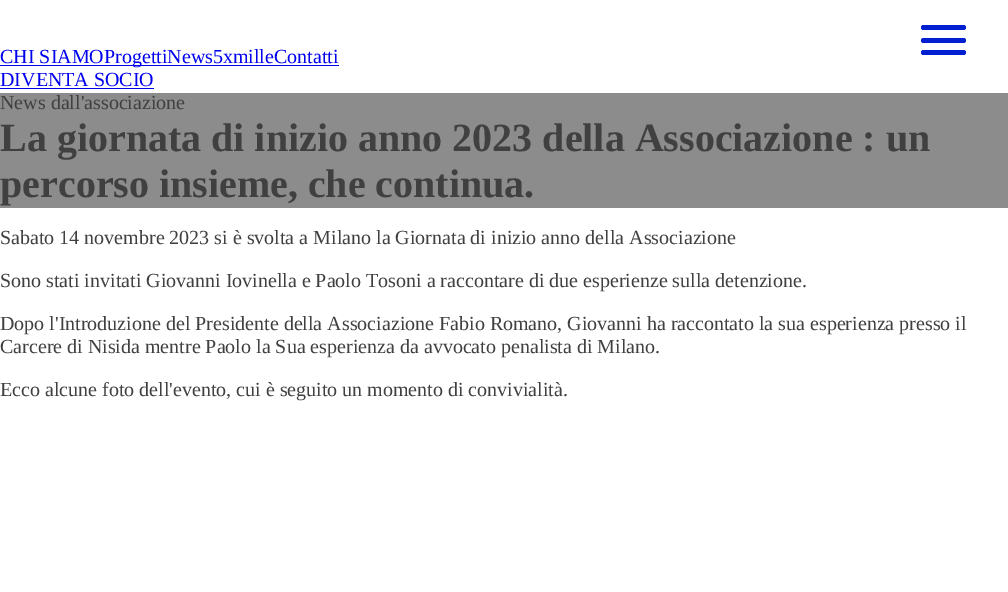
%!PS
<< /PageSize [1008 592] >> setpagedevice
/rgb { 3 { 255 div 3 1 roll } repeat setrgbcolor } def
/font { [ exch dup neg 0 0 3 -1 roll 0 0 ] selectfont } def
/roundrect { 5 dict begin { /r /h /w /y /x } { exch def } forall
  x r add y moveto x w add y 2 copy h add r arct x w add y h add x 1 index r arct
  x y h add x y r arct x y 2 copy exch w add exch r arct closepath end } def
0 592 translate 1 -1 scale
4 setmiterlimit
255 255 255 rgb
0 0 1008 592 rectfill
0 31 208 rgb
921 25 45 5 2.5 roundrect fill
921 38 45 5 2.5 roundrect fill
921 50 45 5 2.5 roundrect fill
[
  [0 65 339 1 0 0 238]
  [0 88 154 1 0 0 238]
  [0 93 1008 115 140 140 140]
] { aload pop rgb rectfill } forall
/LiberationSerif-Regular 20 font
0 0 238 rgb
0 63 moveto (CHI SIAMOProgettiNews5xmilleContatti) show
0 86 moveto (DIVENTA SOCIO) show
64 64 64 rgb
0 109 moveto (News dall'associazione) show
/LiberationSerif-Bold 40 font
0 151 moveto (La giornata di inizio anno 2023 della Associazione : un) show
0 197 moveto (percorso insieme, che continua.) show
/LiberationSerif-Regular 20 font
[
  [(Sabato 14 novembre 2023 si è svolta a Milano la Giornata di inizio anno della Associazione) 0 244]
  [(Sono stati invitati Giovanni Iovinella e Paolo Tosoni a raccontare di due esperienze sulla detenzione.) 0 287]
  [(Dopo l'Introduzione del Presidente della Associazione Fabio Romano, Giovanni ha raccontato la sua esperienza presso il) 0 330]
  [(Carcere di Nisida mentre Paolo la Sua esperienza da avvocato penalista di Milano.) 0 353]
  [(Ecco alcune foto dell'evento, cui è seguito un momento di convivialità.) 0 396]
] { aload pop moveto show } forall
showpage
